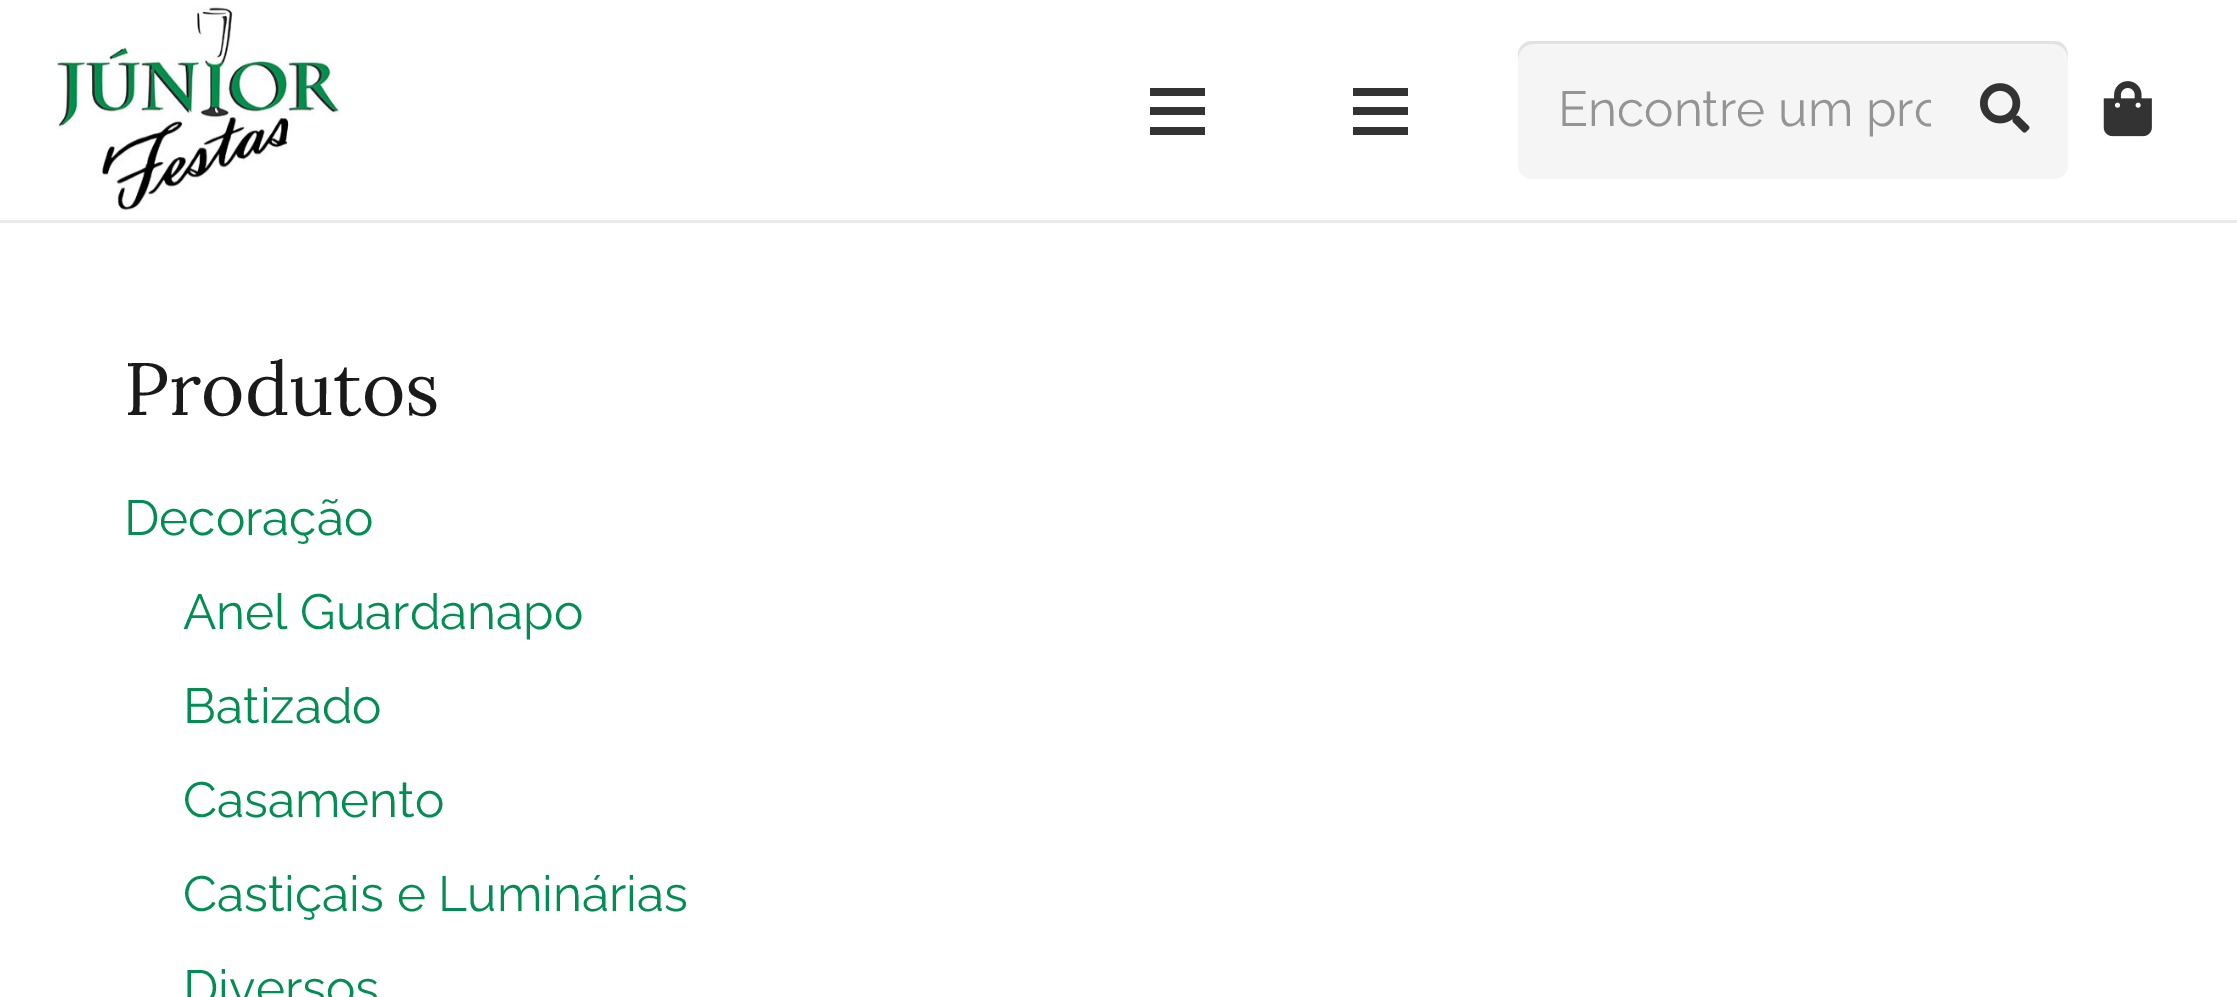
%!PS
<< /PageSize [2237 997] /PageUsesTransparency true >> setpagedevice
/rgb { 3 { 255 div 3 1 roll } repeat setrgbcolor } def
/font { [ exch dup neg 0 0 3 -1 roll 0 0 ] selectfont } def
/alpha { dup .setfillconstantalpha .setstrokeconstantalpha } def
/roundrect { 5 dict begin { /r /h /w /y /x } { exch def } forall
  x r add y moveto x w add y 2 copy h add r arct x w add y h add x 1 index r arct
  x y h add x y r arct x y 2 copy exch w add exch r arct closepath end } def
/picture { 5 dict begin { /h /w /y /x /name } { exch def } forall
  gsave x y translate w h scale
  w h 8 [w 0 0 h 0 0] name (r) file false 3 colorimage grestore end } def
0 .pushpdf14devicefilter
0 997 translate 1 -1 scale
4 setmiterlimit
255 255 255 rgb
0 0 2237 997 rectfill
235 235 235 rgb
0 220 moveto 0 223 lineto 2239 223 lineto 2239 3 lineto 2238 3 lineto 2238 220 lineto closepath fill
(img/1.rgb) 56 7 285 204 picture
[
  [1150 107 55 8 51 51 51]
  [1150 88 55 8 51 51 51]
  [1150 127 55 8 51 51 51]
  [1353 107 55 8 51 51 51]
  [1353 88 55 8 51 51 51]
  [1353 127 55 8 51 51 51]
] { aload pop rgb rectfill } forall
245 245 245 rgb
1518 41 550 138 14 roundrect fill
0.08 alpha
0 0 0 rgb
1533 44 moveto 2053 44 lineto 2061 44 2068 51 2068 59 curveto 2068 51 2066 43 2057 41 curveto 1532 41 lineto 1525 41 1520 46 1518 52 curveto 1518 59 lineto 1518 51 1525 44 1533 44 curveto closepath fill
1 alpha
(img/2.rgb) 1980 83 50 50 picture
(img/3.rgb) 2103 81 49 56 picture
gsave
1557 80 374 58 rectclip
/Raleway-Regular 49.5 font
148 148 148 rgb
1558 126 moveto (Encontre um pro) show
grestore
/Lora-Regular 74.25 font
26 26 26 rgb
124 415 moveto (Produtos) show
/Raleway-Regular 49.5 font
2 141 82 rgb
[
  [(Decoração) 124 535]
  [(Anel Guardanapo) 183 629]
  [(Batizado) 183 723]
  [(Casamento) 183 817]
  [(Castiçais e Luminárias) 183 911]
  [(Diversos) 183 1005]
] { aload pop moveto show } forall
.poppdf14devicefilter showpage
